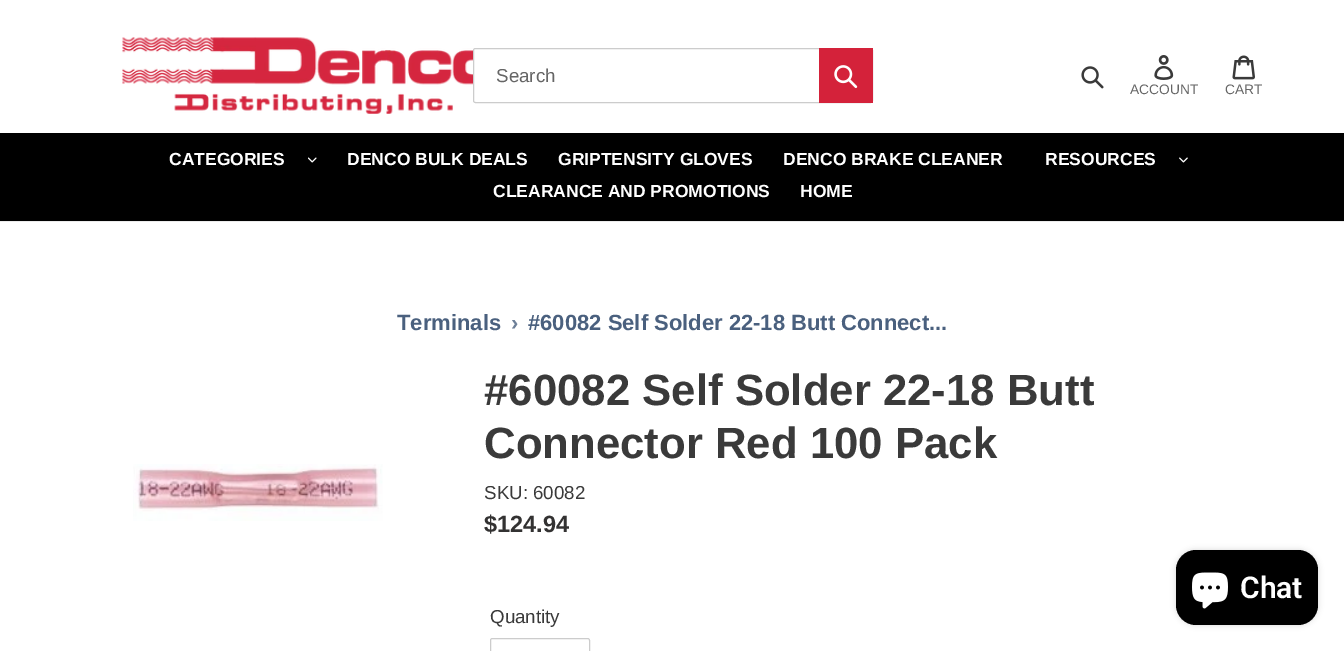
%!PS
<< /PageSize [1344 651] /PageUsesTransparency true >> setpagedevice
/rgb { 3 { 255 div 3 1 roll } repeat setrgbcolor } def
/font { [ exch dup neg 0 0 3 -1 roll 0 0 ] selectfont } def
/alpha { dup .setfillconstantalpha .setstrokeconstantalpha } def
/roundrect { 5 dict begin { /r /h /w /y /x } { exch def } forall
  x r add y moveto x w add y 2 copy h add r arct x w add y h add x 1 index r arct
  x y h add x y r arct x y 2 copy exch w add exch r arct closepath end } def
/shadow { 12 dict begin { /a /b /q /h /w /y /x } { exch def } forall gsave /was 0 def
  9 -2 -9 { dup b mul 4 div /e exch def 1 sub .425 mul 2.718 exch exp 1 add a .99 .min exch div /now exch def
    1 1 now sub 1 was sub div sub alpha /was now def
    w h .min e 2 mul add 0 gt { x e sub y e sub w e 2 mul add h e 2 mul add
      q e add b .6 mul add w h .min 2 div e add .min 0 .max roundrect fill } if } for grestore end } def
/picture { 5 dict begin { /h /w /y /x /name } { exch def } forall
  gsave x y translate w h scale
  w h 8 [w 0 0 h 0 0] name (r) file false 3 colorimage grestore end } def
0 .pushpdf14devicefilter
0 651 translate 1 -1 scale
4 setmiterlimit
255 255 255 rgb
0 0 1344 651 rectfill
(img/1.rgb) 122 37 352 77 picture
473.5 48.5 399 54 2 roundrect gsave fill grestore
204 204 204 rgb
stroke
212 34 58 rgb
819 48 54 55 rectfill
(img/2.rgb) 834 65 24 24 picture
(img/3.rgb) 1081 66 23 23 picture
(img/4.rgb) 1154 55 20 25 picture
(img/5.rgb) 1232 55 23 25 picture
235 235 235 rgb
0 221 1344 1 rectfill
0 0 0 rgb
0 133 1344 88 rectfill
(img/6.rgb) 308 157 9 6 picture
(img/7.rgb) 1179 157 9 6 picture
(img/8.rgb) 133 464 250 57 picture
204 204 204 rgb
490.5 638.5 99 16 2 roundrect stroke
0 0 0 rgb
1176 550 142 75 20 3 0.15 shadow
1176 550 142 75 20 roundrect fill
(img/9.rgb) 1192 572 36 37 picture
/LiberationSans-Regular 18.75 font
102 102 102 rgb
496 82 moveto (Search) show
/LiberationSans-Regular 13.75 font
1130 94 moveto (ACCOUNT) show
1225 94 moveto (CART) show
/LiberationSans-Bold 17.5 font
255 255 255 rgb
[
  [(CATEGORIES) 169 165]
  [(DENCO BULK DEALS) 347 165]
  [(GRIPTENSITY GLOVES) 558 165]
  [(DENCO BRAKE CLEANER) 783 165]
  [(RESOURCES) 1045 165]
  [(CLEARANCE AND PROMOTIONS) 493 197]
  [(HOME) 800 197]
] { aload pop moveto show } forall
/LiberationSans-Bold 22 font
74 96 126 rgb
397 330 moveto (Terminals) show
110 128 152 rgb
511 330 moveto (›) show
74 96 126 rgb
528 330 moveto (#60082 Self Solder 22-18 Butt Connect...) show
/LiberationSans-Bold 43.75 font
58 58 58 rgb
484 405 moveto (#60082 Self Solder 22-18 Butt) show
484 458 moveto (Connector Red 100 Pack) show
/LiberationSans-Regular 18.75 font
484 499 moveto (SKU: 60082) show
/LiberationSans-Bold 23.5 font
51 50 50 rgb
484 532 moveto ($124.94) show
/LiberationSans-Regular 18.75 font
58 58 58 rgb
490 623 moveto (Quantity) show
/Roboto-SemiBold 30 font
255 255 255 rgb
1240 598 moveto (Chat) show
.poppdf14devicefilter showpage
